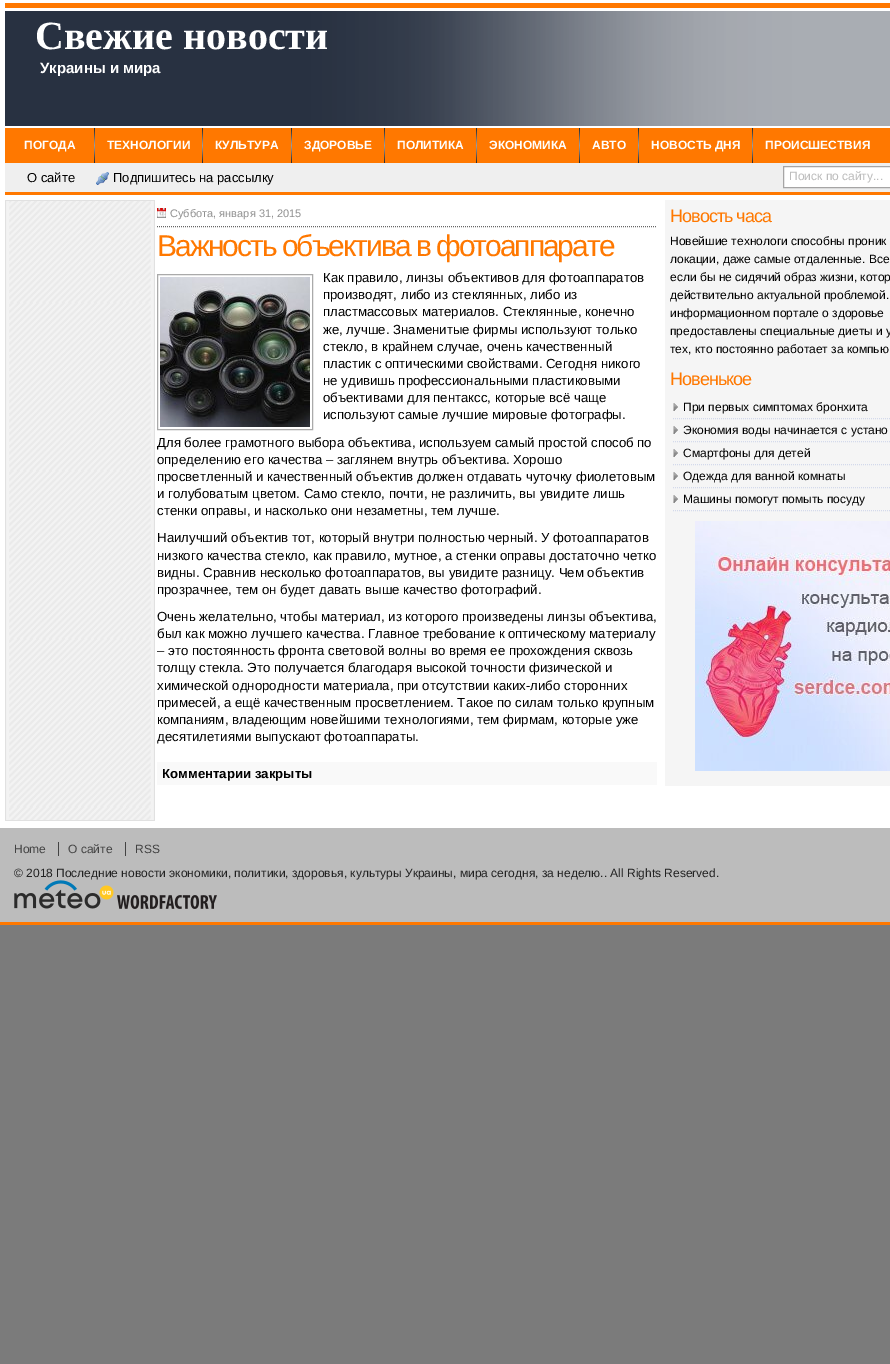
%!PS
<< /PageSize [890 1364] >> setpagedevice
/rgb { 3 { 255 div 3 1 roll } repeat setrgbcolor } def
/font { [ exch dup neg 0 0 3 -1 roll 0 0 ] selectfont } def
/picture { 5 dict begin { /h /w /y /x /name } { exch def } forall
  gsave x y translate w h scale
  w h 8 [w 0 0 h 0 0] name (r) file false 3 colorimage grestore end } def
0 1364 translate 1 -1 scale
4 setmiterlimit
123 123 123 rgb
0 0 890 1364 rectfill
255 255 255 rgb
0 0 890 828 rectfill
255 120 0 rgb
5 3 885 5 rectfill
(img/1.rgb) 5 11 885 115 picture
5 128 885 35 rectfill
(img/2.rgb) 94 128 1 35 picture
(img/2.rgb) 202 128 1 35 picture
(img/2.rgb) 291 128 1 35 picture
(img/2.rgb) 384 128 1 35 picture
(img/2.rgb) 476 128 1 35 picture
(img/2.rgb) 579 128 1 35 picture
(img/2.rgb) 638 128 1 35 picture
(img/2.rgb) 752 128 1 35 picture
239 239 239 rgb
5 163 885 29 rectfill
255 120 0 rgb
5 192 885 3 rectfill
(img/3.rgb) 96 172 13 13 picture
255 255 255 rgb
783.5 166.5 moveto 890.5 166.5 lineto 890.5 187.5 lineto 783.5 187.5 lineto closepath gsave fill grestore
166 165 165 rgb
stroke
(img/4.rgb) 5 201 150 619 picture
225 225 225 rgb
5 200 150 1 rectfill
5 820 150 1 rectfill
102 102 102 rgb
[1 1] 0 setdash
157 226.5 moveto 657 226.5 lineto stroke
(img/5.rgb) 157 208 9 10 picture
170 170 170 rgb
[] 0 setdash
157.5 274.5 155 155 rectstroke
(img/6.rgb) 160 277 150 150 picture
249 249 249 rgb
157 762 500 23 rectfill
245 245 245 rgb
665 200 225 586 rectfill
(img/7.rgb) 673 403 5 8 picture
211 217 235 rgb
[1 1] 0 setdash
673 418.5 moveto 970 418.5 lineto stroke
(img/7.rgb) 673 426 5 8 picture
673 441.5 moveto 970 441.5 lineto stroke
(img/7.rgb) 673 449 5 8 picture
673 464.5 moveto 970 464.5 lineto stroke
(img/7.rgb) 673 472 5 8 picture
673 487.5 moveto 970 487.5 lineto stroke
(img/7.rgb) 673 495 5 8 picture
673 510.5 moveto 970 510.5 lineto stroke
(img/8.rgb) 695 521 195 250 picture
[
  [0 828 890 94 188 188 188]
  [0 922 890 3 255 120 0]
  [58 842 1 14 67 67 67]
  [125 842 1 14 67 67 67]
] { aload pop rgb rectfill } forall
(img/9.rgb) 14 880 100 29 picture
(img/10.rgb) 117 895 100 14 picture
/LiberationSerif-Bold 40 font
255 255 255 rgb
35 49 moveto (Свежие новости) show
gsave
35 59 293 17 rectclip
/LiberationSans-Bold 15 font
40 73 moveto (Украины и мира) show
grestore
/LiberationSans-Bold 12 font
[
  [(ПОГОДА) 24 149]
  [(ТЕХНОЛОГИИ) 107 149]
  [(КУЛЬТУРА) 215 149]
  [(ЗДОРОВЬЕ) 304 149]
  [(ПОЛИТИКА) 397 149]
  [(ЭКОНОМИКА) 489 149]
  [(АВТО) 592 149]
  [(НОВОСТЬ ДНЯ) 651 149]
  [(ПРОИСШЕСТВИЯ) 765 149]
] { aload pop moveto show } forall
/LiberationSans-Regular 13 font
0 0 0 rgb
27 182 moveto (О сайте) show
113 182 moveto (Подпишитесь на рассылку) show
/LiberationSans-Regular 12 font
188 188 188 rgb
789 180 moveto (Поиск по сайту...) show
/LiberationSans-Regular 11 font
144 144 144 rgb
170 217 moveto (Суббота, января 31, 2015) show
/LiberationSans-Regular 30 font
255 120 0 rgb
157 256 moveto -2 0 (Важность объектива в фотоаппарате) ashow
/LiberationSans-Regular 13.2 font
0 0 0 rgb
[
  [(Как правило, линзы объективов для фотоаппаратов) 323 282]
  [(производят, либо из стеклянных, либо из) 323 299]
  [(пластмассовых материалов. Стеклянные, конечно) 323 316]
  [(же, лучше. Знаменитые фирмы используют только) 323 334]
  [(стекло, в крайнем случае, очень качественный) 323 351]
  [(пластик с оптическими свойствами. Сегодня никого) 323 368]
  [(не удивишь профессиональными пластиковыми) 323 385]
  [(объективами для пентаксс, которые всё чаще) 323 402]
  [(используют самые лучшие мировые фотографы.) 323 419]
  [(Для более грамотного выбора объектива, используем самый простой способ по) 157 447]
  [(определению его качества – заглянем внутрь объектива. Хорошо) 157 464]
  [(просветленный и качественный объектив должен отдавать чуточку фиолетовым) 157 481]
  [(и голубоватым цветом. Само стекло, почти, не различить, вы увидите лишь) 157 498]
  [(стенки оправы, и насколько они незаметны, тем лучше.) 157 515]
  [(Наилучший объектив тот, который внутри полностью черный. У фотоаппаратов) 157 542]
  [(низкого качества стекло, как правило, мутное, а стенки оправы достаточно четко) 157 560]
  [(видны. Сравнив несколько фотоаппаратов, вы увидите разницу. Чем объектив) 157 577]
  [(прозрачнее, тем он будет давать выше качество фотографий.) 157 594]
  [(Очень желательно, чтобы материал, из которого произведены линзы объектива,) 157 621]
  [(был как можно лучшего качества. Главное требование к оптическому материалу) 157 638]
  [(– это постоянность фронта световой волны во время ее прохождения сквозь) 157 655]
  [(толщу стекла. Это получается благодаря высокой точности физической и) 157 672]
  [(химической однородности материала, при отсутствии каких-либо сторонних) 157 690]
  [(примесей, а ещё качественным просветлением. Такое по силам только крупным) 157 707]
  [(компаниям, владеющим новейшими технологиями, тем фирмам, которые уже) 157 724]
  [(десятилетиями выпускают фотоаппараты.) 157 741]
] { aload pop moveto show } forall
/LiberationSans-Bold 13.2 font
162 778 moveto (Комментарии закрыты) show
/LiberationSans-Regular 18 font
255 120 0 rgb
670 222 moveto -1 0 (Новость часа) ashow
/LiberationSans-Regular 12 font
0 0 0 rgb
[
  [(Новейшие технологи способны проник) 670 245]
  [(локации, даже самые отдаленные. Все) 670 263]
  [(если бы не сидячий образ жизни, котор) 670 281]
  [(действительно актуальной проблемой.) 670 299]
  [(информационном портале о здоровье) 670 317]
  [(предоставлены специальные диеты и у) 670 335]
  [(тех, кто постоянно работает за компью) 670 353]
] { aload pop moveto show } forall
/LiberationSans-Regular 18 font
255 120 0 rgb
670 385 moveto -1 0 (Новенькое) ashow
/LiberationSans-Regular 12 font
0 0 0 rgb
[
  [(При первых симптомах бронхита) 683 411]
  [(Экономия воды начинается с устано) 683 434]
  [(Смартфоны для детей) 683 457]
  [(Одежда для ванной комнаты) 683 480]
  [(Машины помогут помыть посуду) 683 503]
] { aload pop moveto show } forall
67 67 67 rgb
[
  [(Home) 14 853]
  [(О сайте) 68 853]
  [(RSS) 135 853]
] { aload pop moveto show } forall
34 34 34 rgb
14 877 moveto (© 2018 Последние новости экономики, политики, здоровья, культуры Украины, мира сегодня, за неделю.. All Rights Reserved.) show
showpage
